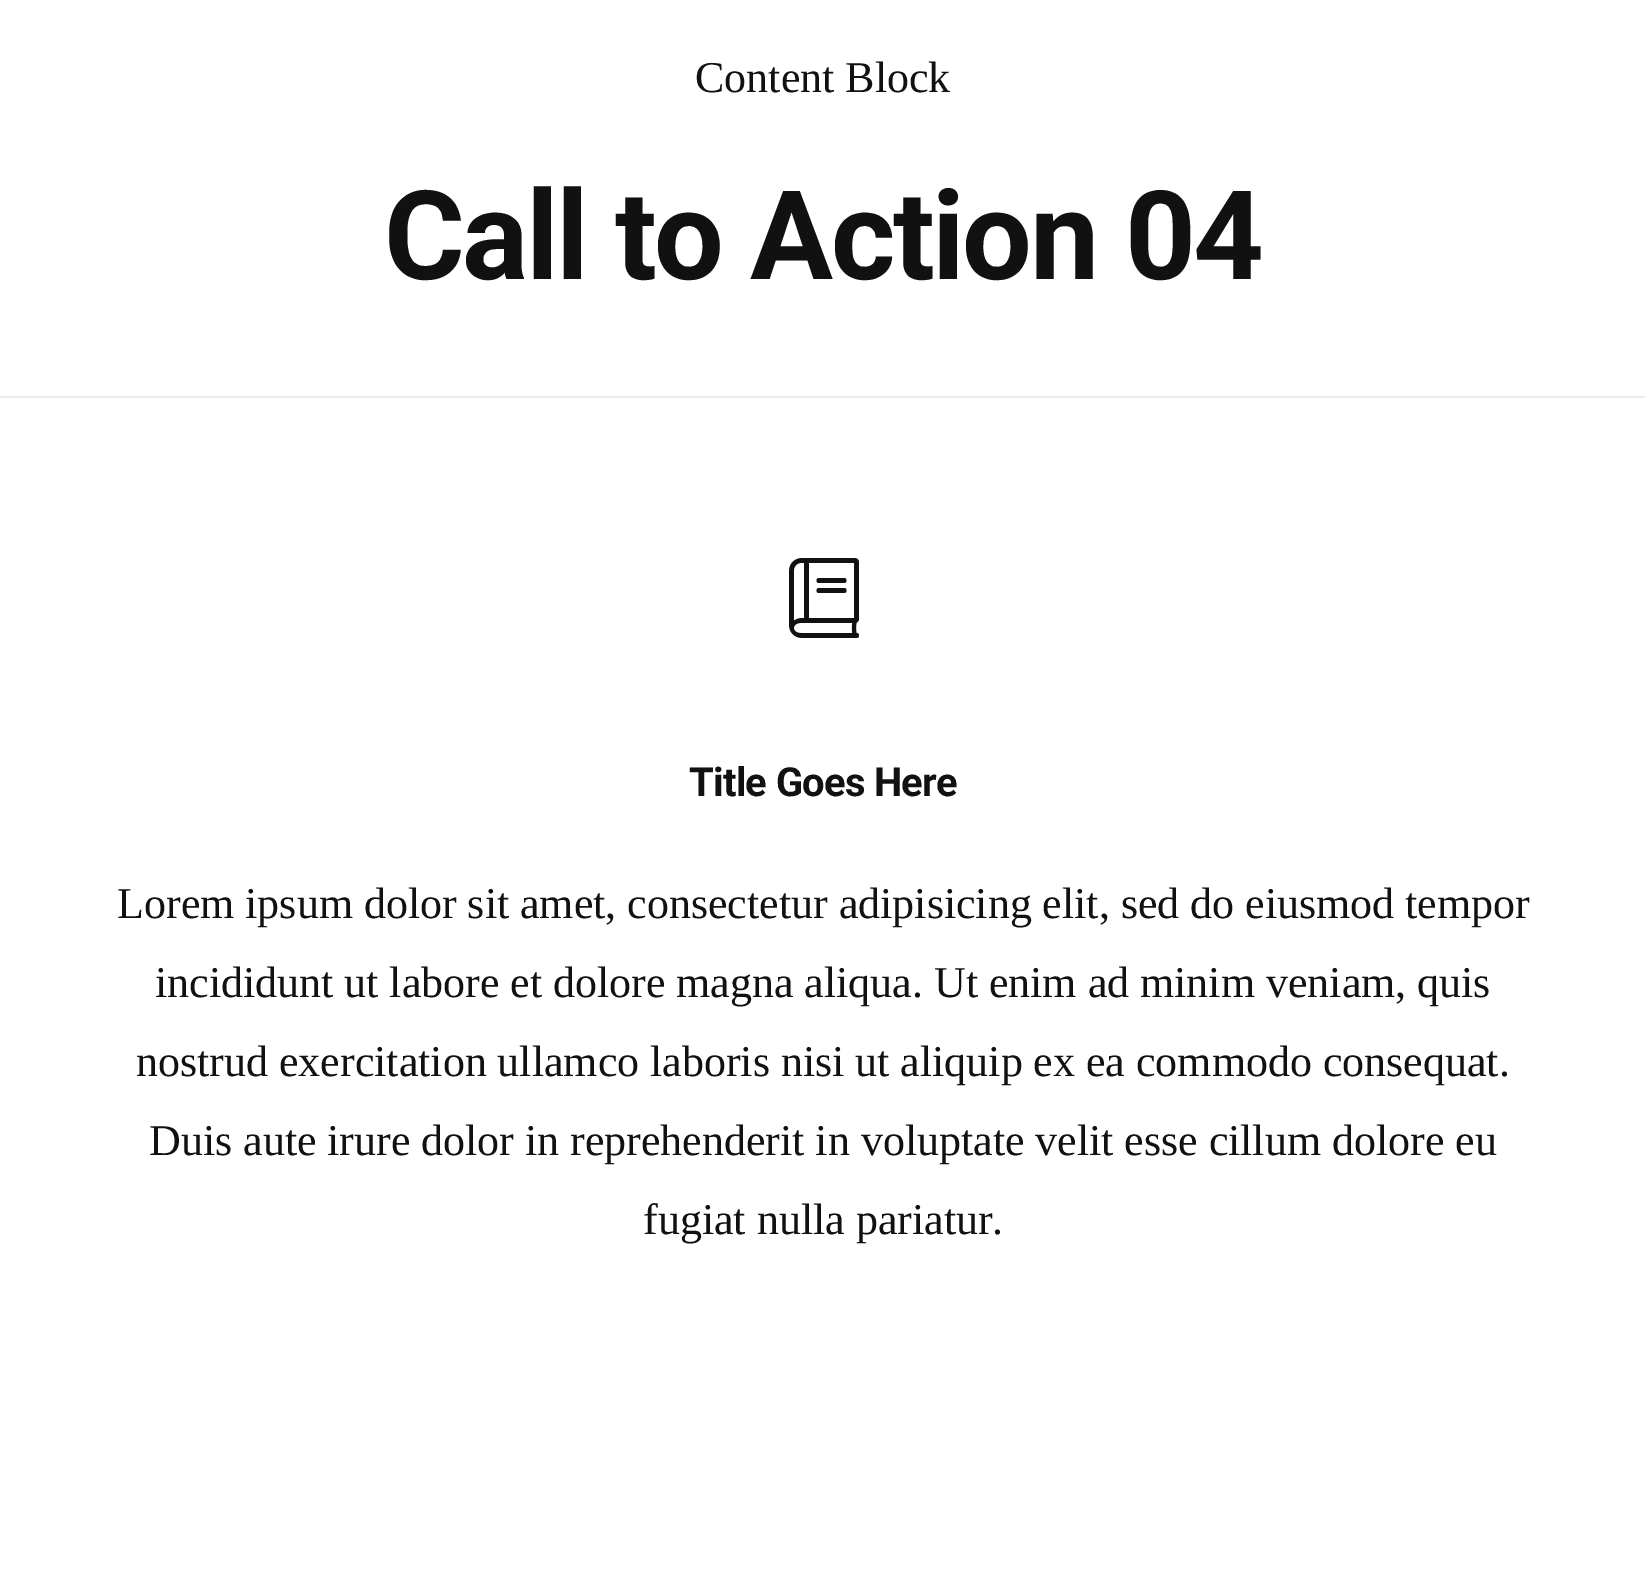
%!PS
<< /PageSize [1645 1595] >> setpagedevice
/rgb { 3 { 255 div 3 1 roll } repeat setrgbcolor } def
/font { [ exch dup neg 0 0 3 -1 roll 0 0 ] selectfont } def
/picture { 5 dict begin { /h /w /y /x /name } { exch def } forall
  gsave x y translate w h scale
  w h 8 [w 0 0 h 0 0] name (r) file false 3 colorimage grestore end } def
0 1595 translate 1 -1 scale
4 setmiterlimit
255 255 255 rgb
0 0 1645 1595 rectfill
235 235 235 rgb
0 396 1645 2 rectfill
(img/1.rgb) 789 558 70 80 picture
/LiberationSerif-Regular 44 font
17 17 17 rgb
695 92 moveto (Content Block) show
/Roboto-Bold 123.75 font
384 279 moveto -2.5 0 (Call to Action 04) ashow
/Roboto-Bold 40 font
689 796 moveto -0.75 0 (Title Goes Here) ashow
/LiberationSerif-Regular 44 font
117 918 moveto -0.1 0 32 (Lorem ipsum dolor sit amet, consectetur adipisicing elit, sed do eiusmod tempor) widthshow
155 997 moveto -0.1 0 32 (incididunt ut labore et dolore magna aliqua. Ut enim ad minim veniam, quis) widthshow
136 1076 moveto -0.1 0 32 (nostrud exercitation ullamco laboris nisi ut aliquip ex ea commodo consequat.) widthshow
149 1155 moveto -0.1 0 32 (Duis aute irure dolor in reprehenderit in voluptate velit esse cillum dolore eu) widthshow
643 1234 moveto (fugiat nulla pariatur.) show
showpage
